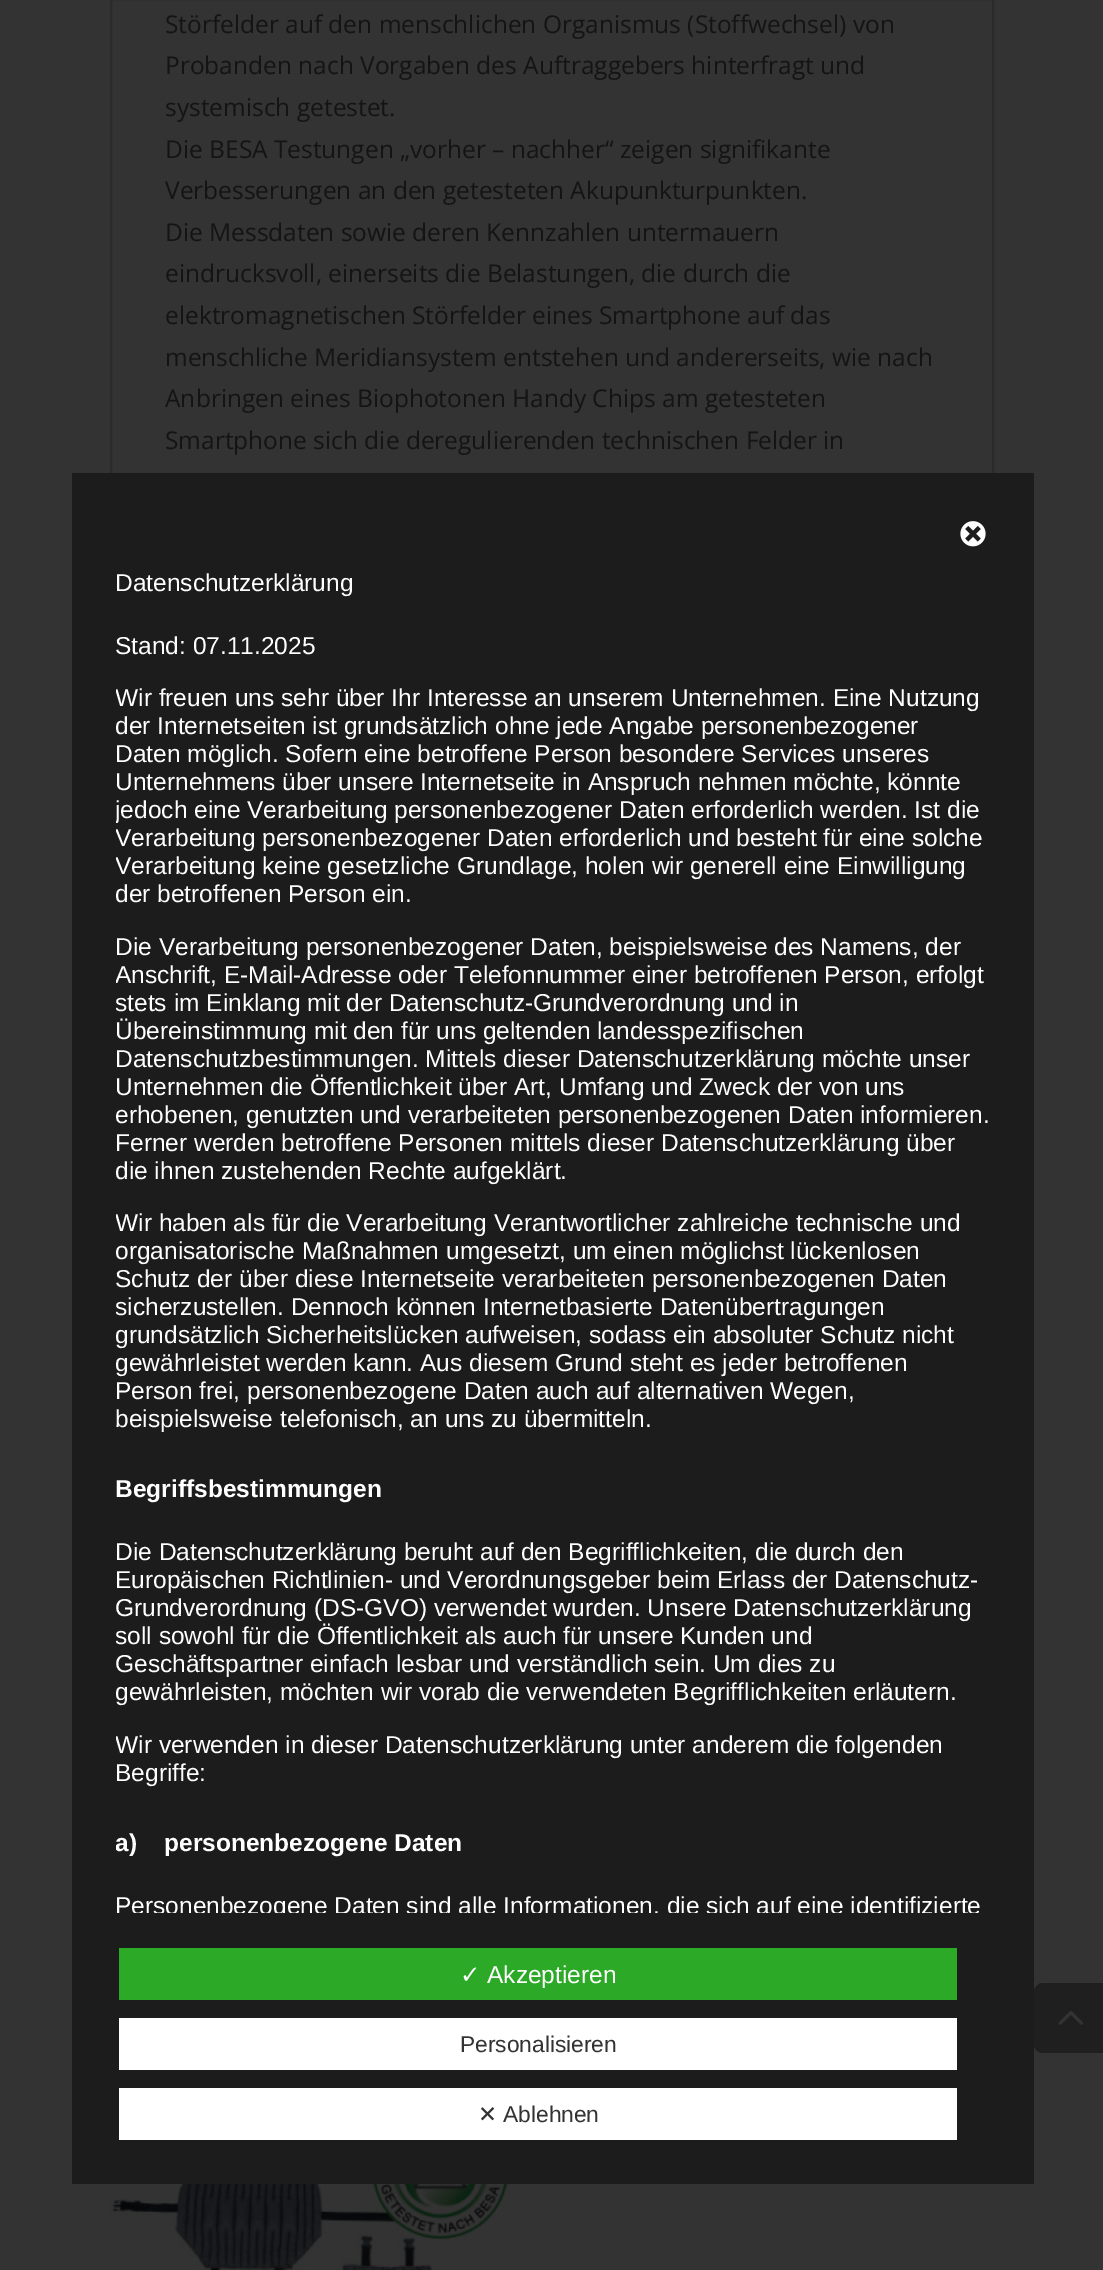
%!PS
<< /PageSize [1103 2270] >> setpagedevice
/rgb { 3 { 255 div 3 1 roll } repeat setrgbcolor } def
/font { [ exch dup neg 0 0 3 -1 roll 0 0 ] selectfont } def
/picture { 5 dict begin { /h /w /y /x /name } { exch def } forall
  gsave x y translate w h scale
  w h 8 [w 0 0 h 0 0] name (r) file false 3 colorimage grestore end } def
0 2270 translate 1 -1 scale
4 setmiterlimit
51 51 51 rgb
0 0 1103 2270 rectfill
43 43 43 rgb
2 setlinewidth
111 -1 882 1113 rectstroke
(img/1.rgb) 110 2184 399 86 picture
31 31 31 rgb
1043 1983 moveto 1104 1983 lineto 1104 2053 lineto 1043 2053 lineto 1038 2053 1034 2049 1034 2044 curveto 1034 1992 lineto 1034 1987 1038 1983 1043 1983 curveto closepath fill
(img/2.rgb) 1058 2011 26 14 picture
29 28 28 rgb
72 473 962 1711 rectfill
(img/3.rgb) 960 521 26 26 picture
[
  [119 1948 838 52 44 170 39]
  [119 2018 838 52 255 255 255]
  [119 2088 838 52 255 255 255]
] { aload pop rgb rectfill } forall
/OpenSans-Regular 24.5 font
20 20 20 rgb
[
  [(Störfelder auf den menschlichen Organismus \(Stoffwechsel\) von) 165 33]
  [(Probanden nach Vorgaben des Auftraggebers hinterfragt und) 165 74]
  [(systemisch getestet.) 165 116]
  [(Die BESA Testungen „vorher – nachher“ zeigen signifikante) 165 158]
  [(Verbesserungen an den getesteten Akupunkturpunkten.) 165 199]
  [(Die Messdaten sowie deren Kennzahlen untermauern) 165 241]
  [(eindrucksvoll, einerseits die Belastungen, die durch die) 165 282]
  [(elektromagnetischen Störfelder eines Smartphone auf das) 165 324]
  [(menschliche Meridiansystem entstehen und andererseits, wie nach) 165 366]
  [(Anbringen eines Biophotonen Handy Chips am getesteten) 165 407]
  [(Smartphone sich die deregulierenden technischen Felder in) 165 449]
] { aload pop moveto show } forall
/LiberationSans-Regular 24.5 font
255 255 255 rgb
115 591 moveto (Datenschutzerklärung) show
115 654 moveto (Stand: 07.11.2025) show
gsave
116 551 918 1362 rectclip
115 706 moveto (Wir freuen uns sehr über Ihr Interesse an unserem Unternehmen. Eine Nutzung) show
115 734 moveto (der Internetseiten ist grundsätzlich ohne jede Angabe personenbezogener) show
grestore
115 762 moveto (Daten möglich. Sofern eine betroffene Person besondere Services unseres) show
115 790 moveto (Unternehmens über unsere Internetseite in Anspruch nehmen möchte, könnte) show
gsave
116 551 918 1362 rectclip
[
  [(jedoch eine Verarbeitung personenbezogener Daten erforderlich werden. Ist die) 115 818]
  [(Verarbeitung personenbezogener Daten erforderlich und besteht für eine solche) 115 846]
  [(Verarbeitung keine gesetzliche Grundlage, holen wir generell eine Einwilligung) 115 874]
  [(der betroffenen Person ein.) 115 902]
] { aload pop moveto show } forall
grestore
115 955 moveto (Die Verarbeitung personenbezogener Daten, beispielsweise des Namens, der) show
gsave
116 551 918 1362 rectclip
115 983 moveto (Anschrift, E-Mail-Adresse oder Telefonnummer einer betroffenen Person, erfolgt) show
115 1011 moveto (stets im Einklang mit der Datenschutz-Grundverordnung und in) show
grestore
[
  [(Übereinstimmung mit den für uns geltenden landesspezifischen) 115 1039]
  [(Datenschutzbestimmungen. Mittels dieser Datenschutzerklärung möchte unser) 115 1067]
  [(Unternehmen die Öffentlichkeit über Art, Umfang und Zweck der von uns) 115 1095]
] { aload pop moveto show } forall
gsave
116 551 918 1362 rectclip
115 1123 moveto (erhobenen, genutzten und verarbeiteten personenbezogenen Daten informieren.) show
grestore
115 1151 moveto (Ferner werden betroffene Personen mittels dieser Datenschutzerklärung über) show
gsave
116 551 918 1362 rectclip
[
  [(die ihnen zustehenden Rechte aufgeklärt.) 115 1179]
  [(Wir haben als für die Verarbeitung Verantwortlicher zahlreiche technische und) 115 1231]
  [(organisatorische Maßnahmen umgesetzt, um einen möglichst lückenlosen) 115 1259]
] { aload pop moveto show } forall
grestore
115 1287 moveto (Schutz der über diese Internetseite verarbeiteten personenbezogenen Daten) show
gsave
116 551 918 1362 rectclip
[
  [(sicherzustellen. Dennoch können Internetbasierte Datenübertragungen) 115 1315]
  [(grundsätzlich Sicherheitslücken aufweisen, sodass ein absoluter Schutz nicht) 115 1343]
  [(gewährleistet werden kann. Aus diesem Grund steht es jeder betroffenen) 115 1371]
] { aload pop moveto show } forall
grestore
115 1399 moveto (Person frei, personenbezogene Daten auch auf alternativen Wegen,) show
115 1427 moveto (beispielsweise telefonisch, an uns zu übermitteln.) show
/LiberationSans-Bold 24.5 font
115 1497 moveto (Begriffsbestimmungen) show
/LiberationSans-Regular 24.5 font
[
  [(Die Datenschutzerklärung beruht auf den Begrifflichkeiten, die durch den) 115 1560]
  [(Europäischen Richtlinien- und Verordnungsgeber beim Erlass der Datenschutz-) 115 1588]
  [(Grundverordnung \(DS-GVO\) verwendet wurden. Unsere Datenschutzerklärung) 115 1616]
] { aload pop moveto show } forall
gsave
116 551 918 1362 rectclip
115 1644 moveto (soll sowohl für die Öffentlichkeit als auch für unsere Kunden und) show
grestore
115 1672 moveto (Geschäftspartner einfach lesbar und verständlich sein. Um dies zu) show
gsave
116 551 918 1362 rectclip
115 1700 moveto (gewährleisten, möchten wir vorab die verwendeten Begrifflichkeiten erläutern.) show
115 1753 moveto (Wir verwenden in dieser Datenschutzerklärung unter anderem die folgenden) show
grestore
115 1781 moveto (Begriffe:) show
gsave
116 551 918 1362 rectclip
/LiberationSans-Bold 24.5 font
115 1851 moveto (a\)    personenbezogene Daten) show
/LiberationSans-Regular 24.5 font
115 1914 moveto (Personenbezogene Daten sind alle Informationen, die sich auf eine identifizierte) show
grestore
/DejaVuSans-Regular 24.5 font
460 1983 moveto (✓) show
/LiberationSans-Regular 24.5 font
487 1983 moveto (Akzeptieren) show
/LiberationSans-Regular 22.75 font
51 51 51 rgb
460 2052 moveto (Personalisieren) show
/DejaVuSans-Regular 22.75 font
478 2122 moveto (✕) show
/LiberationSans-Regular 22.75 font
503 2122 moveto (Ablehnen) show
showpage
